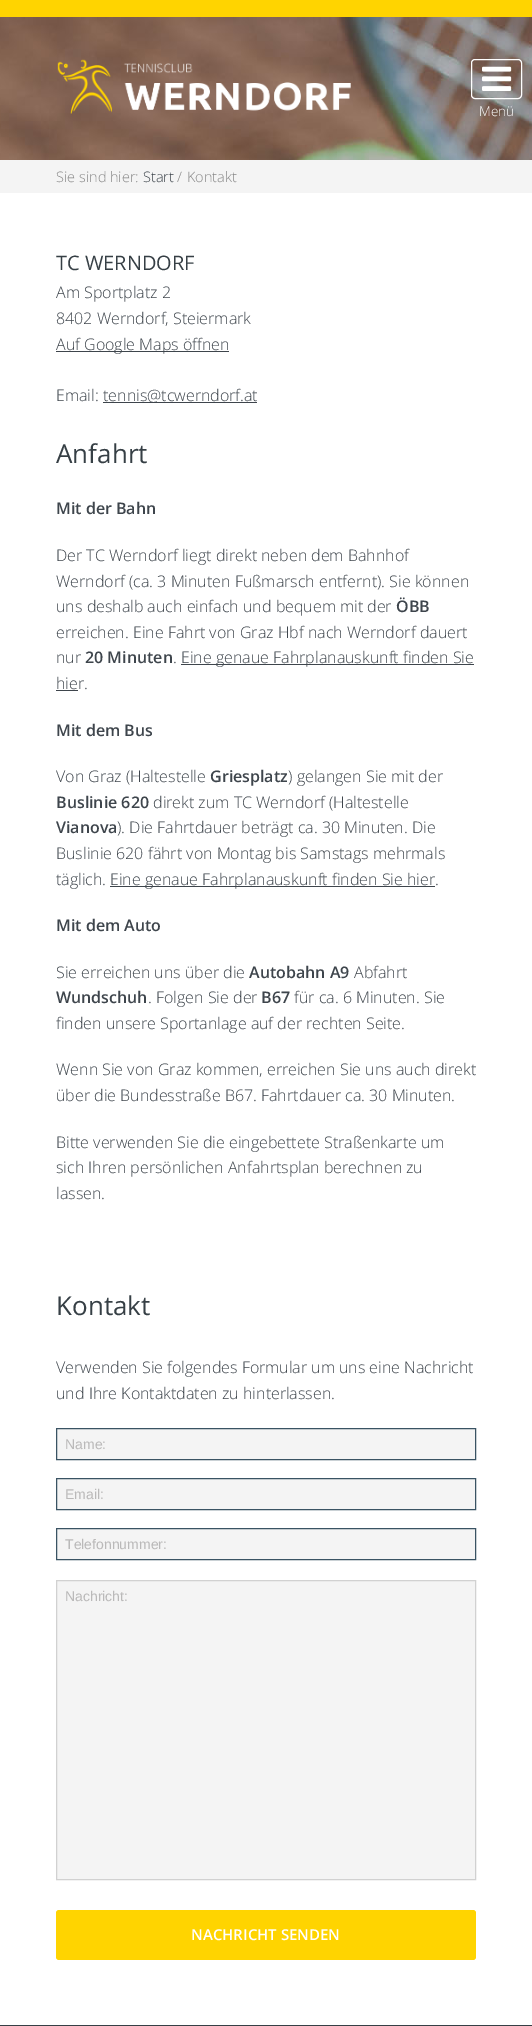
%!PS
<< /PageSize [532 2026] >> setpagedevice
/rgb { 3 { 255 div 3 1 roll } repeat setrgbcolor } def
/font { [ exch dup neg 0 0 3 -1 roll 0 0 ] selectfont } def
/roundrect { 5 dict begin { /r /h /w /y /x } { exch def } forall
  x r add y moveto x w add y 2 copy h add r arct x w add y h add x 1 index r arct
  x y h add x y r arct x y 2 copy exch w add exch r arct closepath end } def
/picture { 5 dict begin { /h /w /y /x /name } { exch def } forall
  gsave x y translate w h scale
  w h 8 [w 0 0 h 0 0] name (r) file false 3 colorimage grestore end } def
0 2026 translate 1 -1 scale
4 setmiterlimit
54 63 69 rgb
0 0 532 2026 rectfill
255 255 255 rgb
0 193 532 1832 rectfill
(img/1.rgb) 0 17 532 143 picture
255 212 0 rgb
0 0 532 17 rectfill
(img/2.rgb) 57 59 294 55 picture
255 255 255 rgb
471.5 59.5 50 39 3.5 roundrect stroke
(img/3.rgb) 482 66 30 25 picture
[
  [0 160 532 33 244 244 244]
  [56 351 173 1 62 69 76]
  [103 402 154 1 62 69 76]
  [181 664 293 1 62 69 76]
  [56 690 22 1 62 69 76]
  [110 886 325 1 62 69 76]
] { aload pop rgb rectfill } forall
244 244 244 rgb
56.5 1428.5 moveto 475.5 1428.5 lineto 475.5 1459.5 lineto 56.5 1459.5 lineto closepath gsave fill grestore
58 83 99 rgb
stroke
244 244 244 rgb
56.5 1478.5 moveto 475.5 1478.5 lineto 475.5 1509.5 lineto 56.5 1509.5 lineto closepath gsave fill grestore
58 83 99 rgb
stroke
244 244 244 rgb
56.5 1528.5 moveto 475.5 1528.5 lineto 475.5 1559.5 lineto 56.5 1559.5 lineto closepath gsave fill grestore
58 83 99 rgb
stroke
244 244 244 rgb
56.5 1580.5 moveto 475.5 1580.5 lineto 475.5 1879.5 lineto 56.5 1879.5 lineto closepath gsave fill grestore
209 209 209 rgb
stroke
255 212 0 rgb
56 1910 420 50 3 roundrect fill
/OpenSans-Light 13.5 font
255 255 255 rgb
479 116 moveto (Menü) show
/OpenSans-Light 14.5 font
136 136 136 rgb
56 182 moveto (Sie sind hier:) show
62 69 76 rgb
143 182 moveto (Start) show
136 136 136 rgb
177 182 moveto (/) show
187 182 moveto (Kontakt) show
/OpenSans-Regular 20 font
54 63 69 rgb
56 270 moveto (TC WERNDORF) show
/OpenSans-Light 16 font
62 69 76 rgb
[
  [(Am Sportplatz 2) 56 298]
  [(8402 Werndorf, Steiermark) 56 324]
  [(Auf Google Maps öffnen) 56 350]
  [(Email:) 56 401]
  [(tennis@tcwerndorf.at) 103 401]
] { aload pop moveto show } forall
/OpenSans-Regular 26 font
54 63 69 rgb
56 463 moveto (Anfahrt) show
/OpenSans-SemiBold 16 font
62 69 76 rgb
56 514 moveto (Mit der Bahn) show
/OpenSans-Light 16 font
[
  [(Der TC Werndorf liegt direkt neben dem Bahnhof) 56 561]
  [(Werndorf \(ca. 3 Minuten Fußmarsch entfernt\). Sie können) 56 587]
  [(uns deshalb auch einfach und bequem mit der) 56 612]
] { aload pop moveto show } forall
/OpenSans-SemiBold 16 font
396 612 moveto (ÖBB) show
/OpenSans-Light 16 font
56 638 moveto (erreichen. Eine Fahrt von Graz Hbf nach Werndorf dauert) show
56 663 moveto (nur) show
/OpenSans-SemiBold 16 font
85 663 moveto (20 Minuten) show
/OpenSans-Light 16 font
[
  [(.) 173 663]
  [(Eine genaue Fahrplanauskunft finden Sie) 181 663]
  [(hier.) 56 689]
] { aload pop moveto show } forall
/OpenSans-SemiBold 16 font
56 736 moveto (Mit dem Bus) show
/OpenSans-Light 16 font
56 782 moveto (Von Graz \(Haltestelle) show
/OpenSans-SemiBold 16 font
210 782 moveto (Griesplatz) show
/OpenSans-Light 16 font
288 782 moveto (\) gelangen Sie mit der) show
/OpenSans-SemiBold 16 font
56 808 moveto (Buslinie 620) show
/OpenSans-Light 16 font
153 808 moveto (direkt zum TC Werndorf \(Haltestelle) show
/OpenSans-SemiBold 16 font
56 833 moveto (Vianova) show
/OpenSans-Light 16 font
[
  [(\). Die Fahrtdauer beträgt ca. 30 Minuten. Die) 117 833]
  [(Buslinie 620 fährt von Montag bis Samstags mehrmals) 56 859]
  [(täglich.) 56 885]
  [(Eine genaue Fahrplanauskunft finden Sie hier.) 110 885]
] { aload pop moveto show } forall
/OpenSans-SemiBold 16 font
56 931 moveto (Mit dem Auto) show
/OpenSans-Light 16 font
56 978 moveto (Sie erreichen uns über die) show
/OpenSans-SemiBold 16 font
249 978 moveto (Autobahn A9) show
/OpenSans-Light 16 font
354 978 moveto (Abfahrt) show
/OpenSans-SemiBold 16 font
56 1003 moveto (Wundschuh) show
/OpenSans-Light 16 font
148 1003 moveto (. Folgen Sie der) show
/OpenSans-SemiBold 16 font
261 1003 moveto (B67) show
/OpenSans-Light 16 font
[
  [(für ca. 6 Minuten. Sie) 294 1003]
  [(finden unsere Sportanlage auf der rechten Seite.) 56 1029]
  [(Wenn Sie von Graz kommen, erreichen Sie uns auch direkt) 56 1075]
  [(über die Bundesstraße B67. Fahrtdauer ca. 30 Minuten.) 56 1101]
  [(Bitte verwenden Sie die eingebettete Straßenkarte um) 56 1148]
  [(sich Ihren persönlichen Anfahrtsplan berechnen zu) 56 1173]
  [(lassen.) 56 1199]
] { aload pop moveto show } forall
/OpenSans-Regular 26 font
54 63 69 rgb
56 1315 moveto (Kontakt) show
/OpenSans-Light 16 font
62 69 76 rgb
56 1373 moveto (Verwenden Sie folgendes Formular um uns eine Nachricht) show
56 1399 moveto (und Ihre Kontaktdaten zu hinterlassen.) show
/LiberationSans-Regular 14 font
186 185 185 rgb
[
  [(Name:) 65 1449]
  [(Email:) 65 1499]
  [(Telefonnummer:) 65 1549]
  [(Nachricht:) 65 1601]
] { aload pop moveto show } forall
/OpenSans-SemiBold 15 font
255 255 255 rgb
191 1940 moveto (NACHRICHT SENDEN) show
showpage
